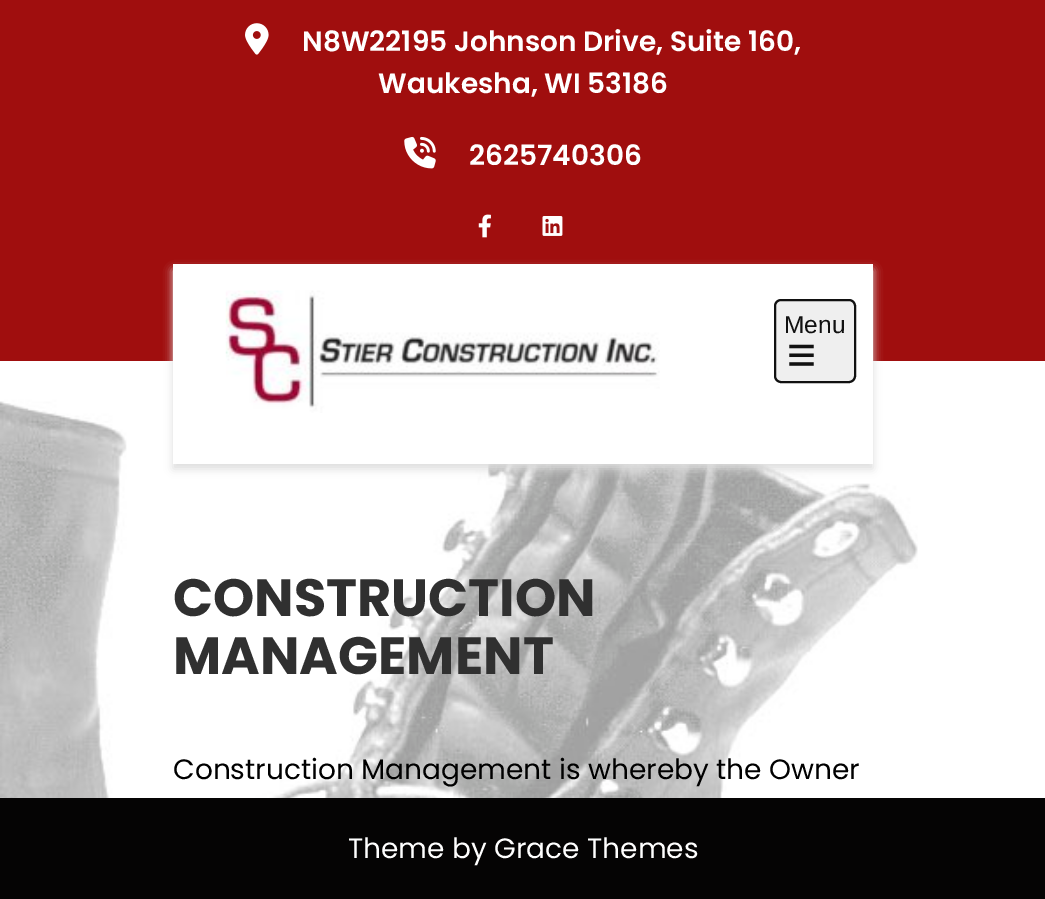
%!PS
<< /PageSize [1045 899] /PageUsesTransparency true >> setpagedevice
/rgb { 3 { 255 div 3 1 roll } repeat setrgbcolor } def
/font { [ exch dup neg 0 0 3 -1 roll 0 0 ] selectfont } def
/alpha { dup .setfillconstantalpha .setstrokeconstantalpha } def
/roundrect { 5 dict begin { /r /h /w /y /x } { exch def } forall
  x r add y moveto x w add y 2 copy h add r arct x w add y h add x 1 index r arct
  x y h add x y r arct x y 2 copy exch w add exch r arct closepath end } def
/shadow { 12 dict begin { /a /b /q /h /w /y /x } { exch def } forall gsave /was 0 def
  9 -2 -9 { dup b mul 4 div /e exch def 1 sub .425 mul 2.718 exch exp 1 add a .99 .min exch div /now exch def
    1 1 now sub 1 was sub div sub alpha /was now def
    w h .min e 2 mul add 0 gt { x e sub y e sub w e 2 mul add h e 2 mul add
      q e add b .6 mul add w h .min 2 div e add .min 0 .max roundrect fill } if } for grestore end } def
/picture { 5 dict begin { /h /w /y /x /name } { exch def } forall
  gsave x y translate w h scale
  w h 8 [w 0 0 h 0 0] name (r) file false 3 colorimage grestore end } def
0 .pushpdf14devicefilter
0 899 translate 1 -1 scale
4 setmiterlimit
255 255 255 rgb
0 0 1045 899 rectfill
(img/1.rgb) 0 361 918 437 picture
160 14 14 rgb
0 0 1045 361 rectfill
(img/2.rgb) 245 23 24 32 picture
(img/3.rgb) 404 136 32 33 picture
(img/4.rgb) 478 214 13 24 picture
(img/5.rgb) 542 216 21 20 picture
221 221 221 rgb
173 270 700 199 0 4.5 1 shadow
255 255 255 rgb
173 264 700 200 rectfill
(img/6.rgb) 225 290 435 123 picture
239 239 239 rgb
775 300 80 82 6 roundrect gsave fill grestore
17 17 17 rgb
2 setlinewidth
stroke
(img/7.rgb) 789 344 25 22 picture
5 4 4 rgb
0 798 1045 101 rectfill
/Poppins-SemiBold 28 font
255 255 255 rgb
[
  [(N8W22195 Johnson Drive, Suite 160,) 302 51]
  [(Waukesha, WI 53186) 378 93]
  [(2625740306) 469 165]
] { aload pop moveto show } forall
/LiberationSans-Regular 24.5 font
17 17 17 rgb
784 333 moveto (Menu) show
/Poppins-Bold 52.5 font
48 48 48 rgb
173 616 moveto (CONSTRUCTION) show
173 674 moveto (MANAGEMENT) show
/Poppins-Regular 28 font
0 0 0 rgb
173 779 moveto (Construction Management is whereby the Owner) show
255 255 255 rgb
348 858 moveto (Theme by Grace Themes) show
.poppdf14devicefilter showpage
